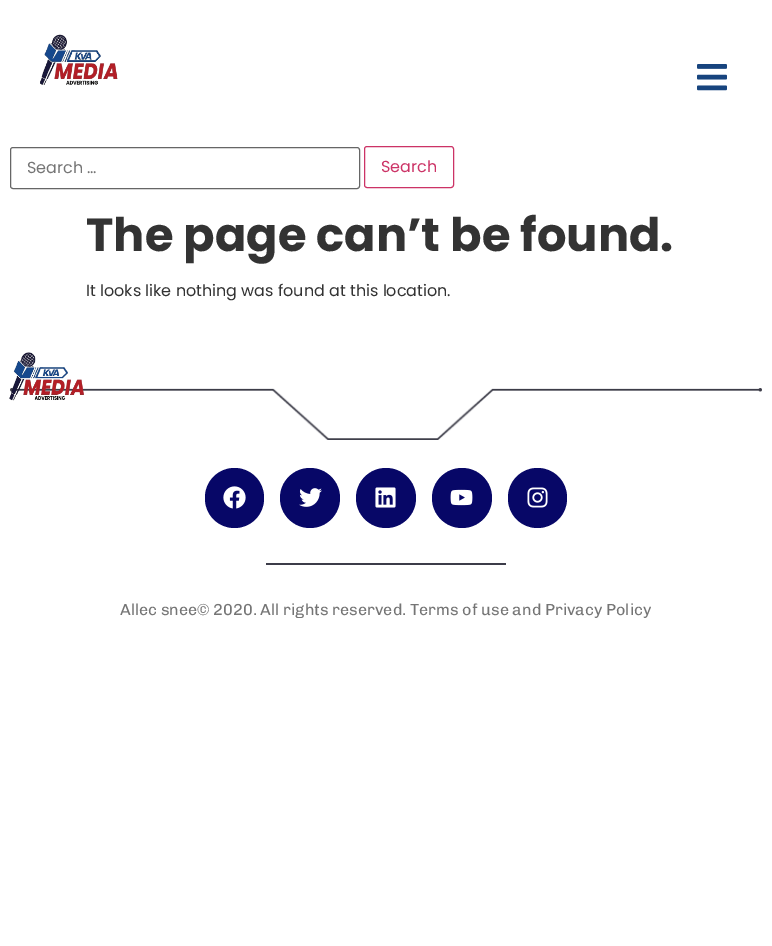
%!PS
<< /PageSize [772 946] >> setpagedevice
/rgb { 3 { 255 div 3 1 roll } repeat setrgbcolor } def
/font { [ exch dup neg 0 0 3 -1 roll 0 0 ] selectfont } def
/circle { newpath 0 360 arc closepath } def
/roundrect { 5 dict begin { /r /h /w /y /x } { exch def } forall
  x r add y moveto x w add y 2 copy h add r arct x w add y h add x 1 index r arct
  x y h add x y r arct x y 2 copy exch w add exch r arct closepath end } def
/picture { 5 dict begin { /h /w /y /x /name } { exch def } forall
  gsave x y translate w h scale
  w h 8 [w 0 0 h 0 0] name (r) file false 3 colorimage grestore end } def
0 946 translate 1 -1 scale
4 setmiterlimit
255 255 255 rgb
0 0 772 946 rectfill
(img/1.rgb) 40 34 78 51 picture
(img/2.rgb) 697 64 30 27 picture
102 102 102 rgb
10.5 147.5 349 41 2.5 roundrect stroke
204 51 102 rgb
364.5 146.5 89 41 2.5 roundrect stroke
(img/4.rgb) 10 388 752 52 picture
(img/3.rgb) 9 352 75 49 picture
7 7 103 rgb
205 468 59 60 29.5 roundrect fill
(img/5.rgb) 223 486 23 23 picture
310 498 30 circle fill
(img/6.rgb) 299 488 23 19 picture
386 498 30 circle fill
(img/7.rgb) 375 487 21 21 picture
462 498 30 circle fill
(img/8.rgb) 450 489 23 17 picture
508 468 59 60 29.5 roundrect fill
(img/9.rgb) 527 487 21 21 picture
60 60 73 rgb
266 563 240 2 rectfill
/Poppins-Regular 16 font
117 117 117 rgb
27 173 moveto (Search …) show
204 51 102 rgb
381 172 moveto (Search) show
/Poppins-Bold 46.4 font
51 51 51 rgb
86 251 moveto (The page can’t be found.) show
/Poppins-Regular 16 font
86 296 moveto (It looks like nothing was found at this location.) show
/Chivo-Regular 16 font
117 117 117 rgb
120 615 moveto (Allec snee© 2020. All rights reserved. Terms of use and Privacy Policy) show
showpage
